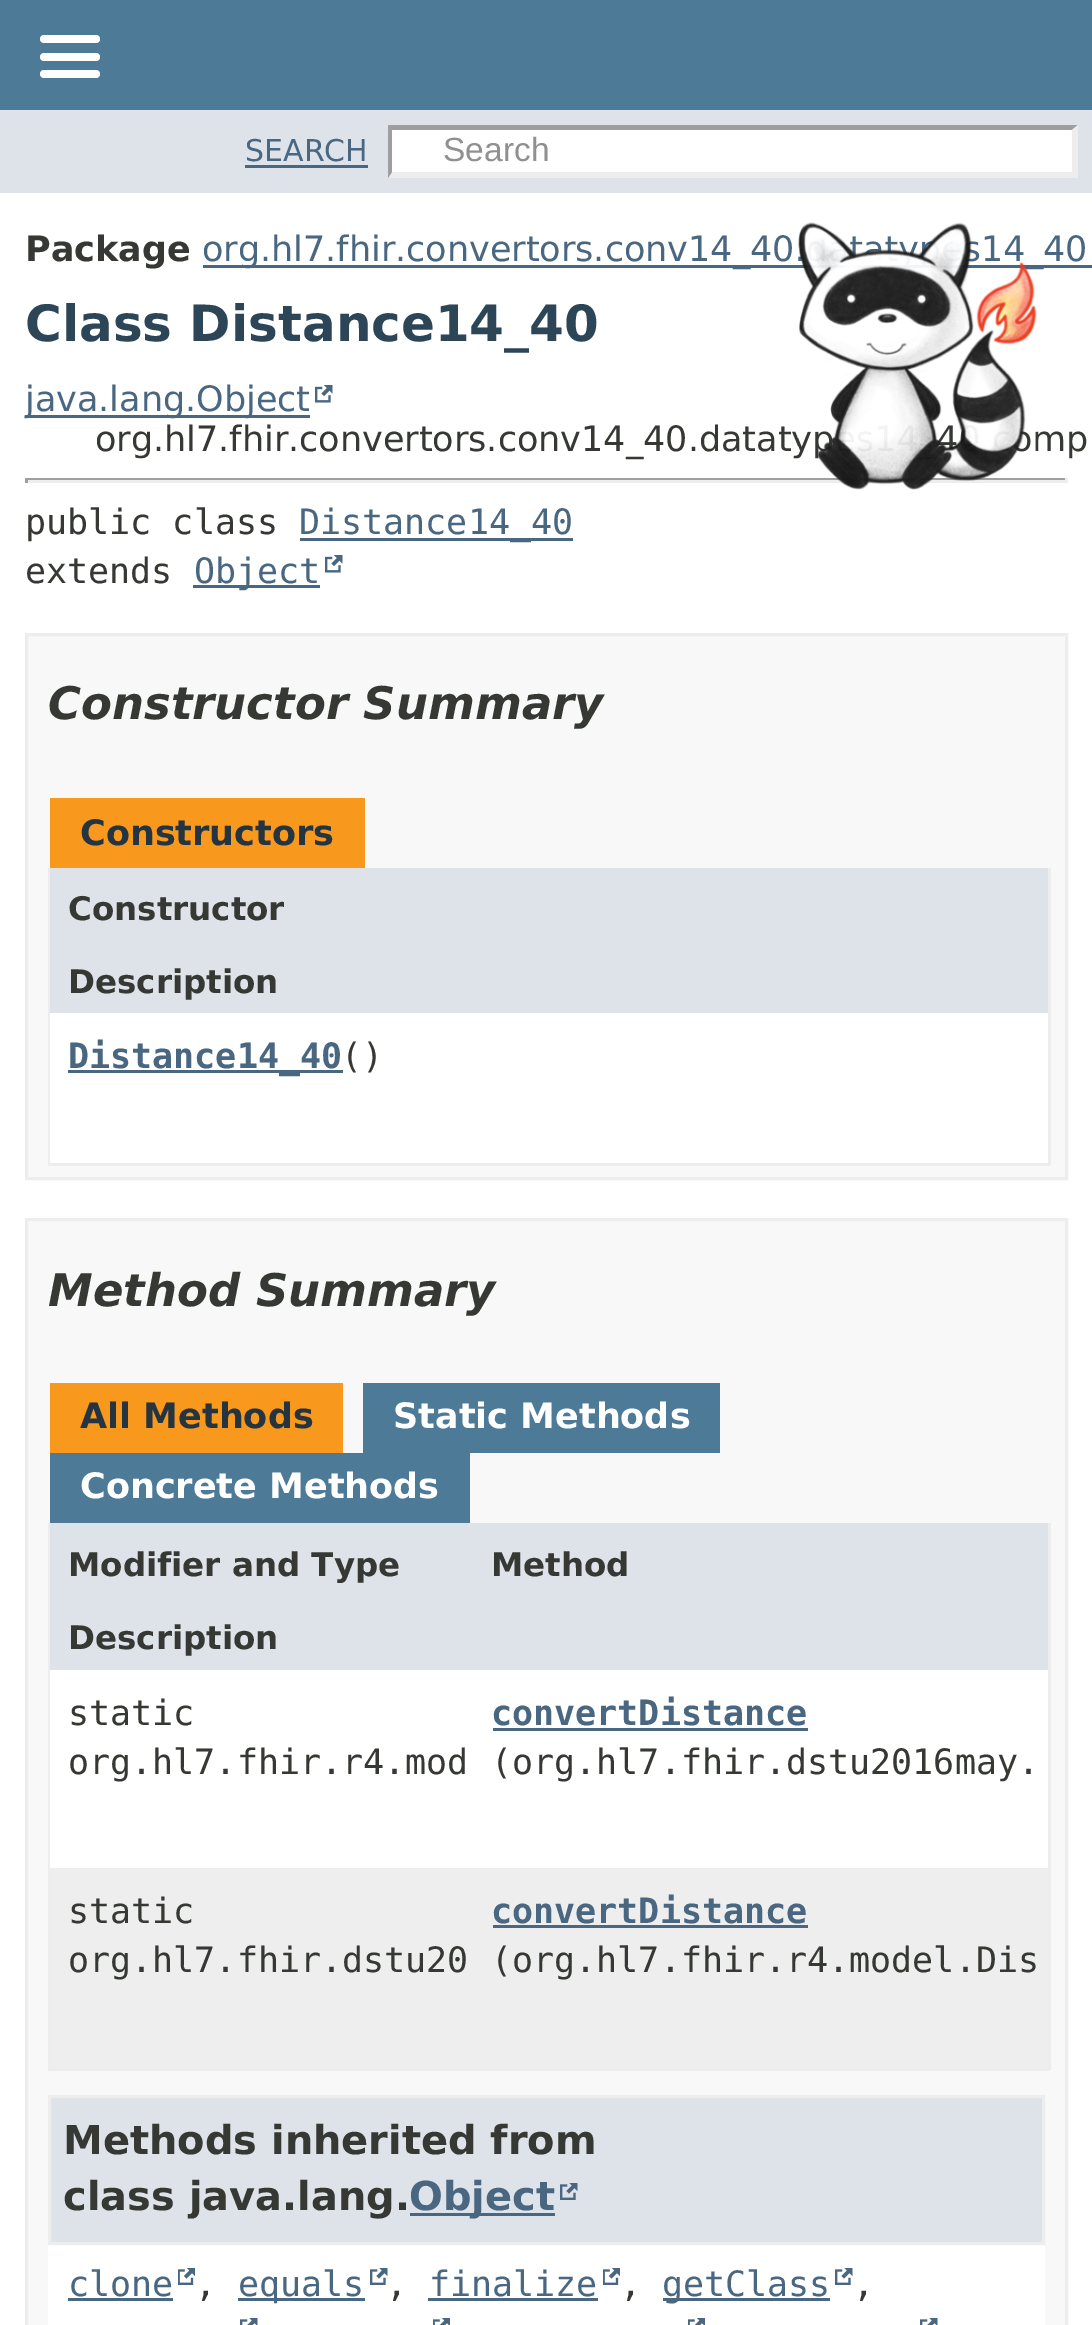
%!PS
<< /PageSize [1092 2325] >> setpagedevice
/rgb { 3 { 255 div 3 1 roll } repeat setrgbcolor } def
/font { [ exch dup neg 0 0 3 -1 roll 0 0 ] selectfont } def
/roundrect { 5 dict begin { /r /h /w /y /x } { exch def } forall
  x r add y moveto x w add y 2 copy h add r arct x w add y h add x 1 index r arct
  x y h add x y r arct x y 2 copy exch w add exch r arct closepath end } def
/picture { 5 dict begin { /h /w /y /x /name } { exch def } forall
  gsave x y translate w h scale
  w h 8 [w 0 0 h 0 0] name (r) file false 3 colorimage grestore end } def
0 2325 translate 1 -1 scale
4 setmiterlimit
255 255 255 rgb
0 0 1092 2325 rectfill
77 122 151 rgb
0 0 1092 110 rectfill
255 255 255 rgb
40 35 60 8 4 roundrect fill
40 53 60 8 4 roundrect fill
40 70 60 8 4 roundrect fill
[
  [0 110 1092 83 222 227 233]
  [245 165 123 3 74 103 130]
  [388 125 690 53 255 255 255]
] { aload pop rgb rectfill } forall
158 158 158 rgb
388 125 moveto 1078 125 lineto 1072 130 lineto 392 130 lineto closepath fill
237 237 237 rgb
1078 125 moveto 1078 178 lineto 1072 172 lineto 1072 130 lineto closepath fill
1078 178 moveto 388 178 lineto 392 172 lineto 1072 172 lineto closepath fill
158 158 158 rgb
388 178 moveto 388 125 lineto 392 130 lineto 392 172 lineto closepath fill
74 103 130 rgb
203 265 889 3 rectfill
25 415 285 3 rectfill
(img/2.rgb) 315 385 18 18 picture
[
  [25 478 1043 2 159 159 159]
  [1065 478 3 5 238 238 238]
  [25 480 1043 3 238 238 238]
  [25 478 3 5 159 159 159]
  [300 538 273 3 74 103 130]
  [193 585 127 3 74 103 130]
] { aload pop rgb rectfill } forall
(img/2.rgb) 325 555 18 18 picture
248 248 248 rgb
26.5 634.5 moveto 1066.5 634.5 lineto 1066.5 1178.5 lineto 26.5 1178.5 lineto closepath gsave fill grestore
237 237 237 rgb
3 setlinewidth
stroke
[
  [50 798 315 70 248 152 29]
  [1048 868 3 297 237 237 237]
  [48 1163 1002 3 237 237 237]
  [48 868 3 297 237 237 237]
  [50 868 998 145 222 227 233]
  [50 1013 998 150 255 255 255]
  [68 1070 275 3 74 103 130]
] { aload pop rgb rectfill } forall
248 248 248 rgb
26.5 1219.5 moveto 1066.5 1219.5 lineto 1066.5 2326.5 lineto 26.5 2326.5 lineto closepath gsave fill grestore
237 237 237 rgb
stroke
[
  [50 1383 293 70 248 152 29]
  [363 1383 357 70 77 122 151]
  [50 1453 420 70 77 122 151]
  [1048 1523 3 547 237 237 237]
  [48 2068 1002 3 237 237 237]
  [48 1523 3 547 237 237 237]
  [50 1523 998 147 222 227 233]
  [50 1670 998 198 255 255 255]
  [493 1728 315 3 74 103 130]
  [51 1868 997 200 238 238 239]
  [493 1925 315 3 74 103 130]
  [48 2245 997 80 255 255 255]
] { aload pop rgb rectfill } forall
222 227 233 rgb
49.5 2096.5 moveto 1043.5 2096.5 lineto 1043.5 2243.5 lineto 49.5 2243.5 lineto closepath gsave fill grestore
237 237 237 rgb
stroke
74 103 130 rgb
410 2213 145 3 rectfill
(img/3.rgb) 560 2183 18 17 picture
68 2298 105 3 rectfill
(img/4.rgb) 178 2268 17 17 picture
238 2298 127 3 rectfill
(img/5.rgb) 370 2268 18 17 picture
428 2298 170 3 rectfill
(img/4.rgb) 603 2268 17 17 picture
663 2298 167 3 rectfill
(img/5.rgb) 835 2268 18 17 picture
(img/6.rgb) 240 2318 18 7 picture
(img/7.rgb) 433 2318 17 7 picture
(img/7.rgb) 688 2318 17 7 picture
(img/6.rgb) 920 2318 18 7 picture
/DejaVuSans-Regular 30 font
245 161 moveto (SEARCH) show
/LiberationSans-Regular 33.5 font
144 144 144 rgb
443 161 moveto (Search) show
/DejaVuSans-Bold 35 font
53 56 51 rgb
25 261 moveto (Package) show
/DejaVuSans-Regular 35 font
74 103 130 rgb
202 261 moveto (org.hl7.fhir.convertors.conv14_40) show
981 261 moveto (14_40) show
/DejaVuSans-Bold 50 font
44 69 87 rgb
25 341 moveto (Class Distance14_40) show
/DejaVuSans-Regular 35 font
74 103 130 rgb
25 411 moveto (java.lang.Object) show
53 56 51 rgb
95 451 moveto (org.hl7.fhir.convertors.conv14_40.dataty) show
1032 451 moveto (mp) show
(img/1.rgb) 798 222 239 268 picture
/DejaVuSansMono-Regular 35 font
25 534 moveto (public class) show
74 103 130 rgb
299 534 moveto (Distance14_40) show
53 56 51 rgb
25 583 moveto (extends) show
74 103 130 rgb
194 583 moveto (Object) show
/DejaVuSans-BoldItalic 45 font
53 56 51 rgb
48 719 moveto (Constructor Summary) show
/DejaVuSans-Bold 35 font
37 52 65 rgb
80 845 moveto (Constructors) show
/DejaVuSans-Bold 32.5 font
53 56 51 rgb
68 920 moveto (Constructor) show
68 993 moveto (Description) show
/DejaVuSansMono-Bold 35 font
74 103 130 rgb
68 1068 moveto (Distance14_40) show
/DejaVuSansMono-Regular 35 font
53 56 51 rgb
341 1068 moveto (\(\)) show
/DejaVuSans-BoldItalic 45 font
48 1306 moveto (Method Summary) show
/DejaVuSans-Bold 35 font
37 52 65 rgb
80 1428 moveto (All Methods) show
255 255 255 rgb
393 1428 moveto (Static Methods) show
80 1498 moveto (Concrete Methods) show
/DejaVuSans-Bold 32.5 font
53 56 51 rgb
[
  [(Modifier and Type) 68 1576]
  [(Method) 491 1576]
  [(Description) 68 1649]
] { aload pop moveto show } forall
/DejaVuSansMono-Regular 35 font
68 1725 moveto (static) show
68 1774 moveto (org.hl7.fhir.r4.mod) show
/DejaVuSansMono-Bold 35 font
74 103 130 rgb
491 1725 moveto (convertDistance) show
/DejaVuSansMono-Regular 35 font
53 56 51 rgb
[
  [(\(org.hl7.fhir.dstu2016may.) 491 1774]
  [(static) 68 1923]
  [(org.hl7.fhir.dstu20) 68 1972]
] { aload pop moveto show } forall
/DejaVuSansMono-Bold 35 font
74 103 130 rgb
491 1923 moveto (convertDistance) show
/DejaVuSansMono-Regular 35 font
53 56 51 rgb
491 1972 moveto (\(org.hl7.fhir.r4.model.Dis) show
/DejaVuSans-Bold 39.9 font
63 2154 moveto (Methods inherited from) show
63 2210 moveto (class java.lang.) show
74 103 130 rgb
409 2210 moveto (Object) show
/DejaVuSansMono-Regular 35 font
68 2296 moveto (clone) show
53 56 51 rgb
195 2296 moveto (,) show
74 103 130 rgb
238 2296 moveto (equals) show
53 56 51 rgb
386 2296 moveto (,) show
74 103 130 rgb
429 2296 moveto (finalize) show
53 56 51 rgb
620 2296 moveto (,) show
74 103 130 rgb
662 2296 moveto (getClass) show
53 56 51 rgb
853 2296 moveto (,) show
showpage
